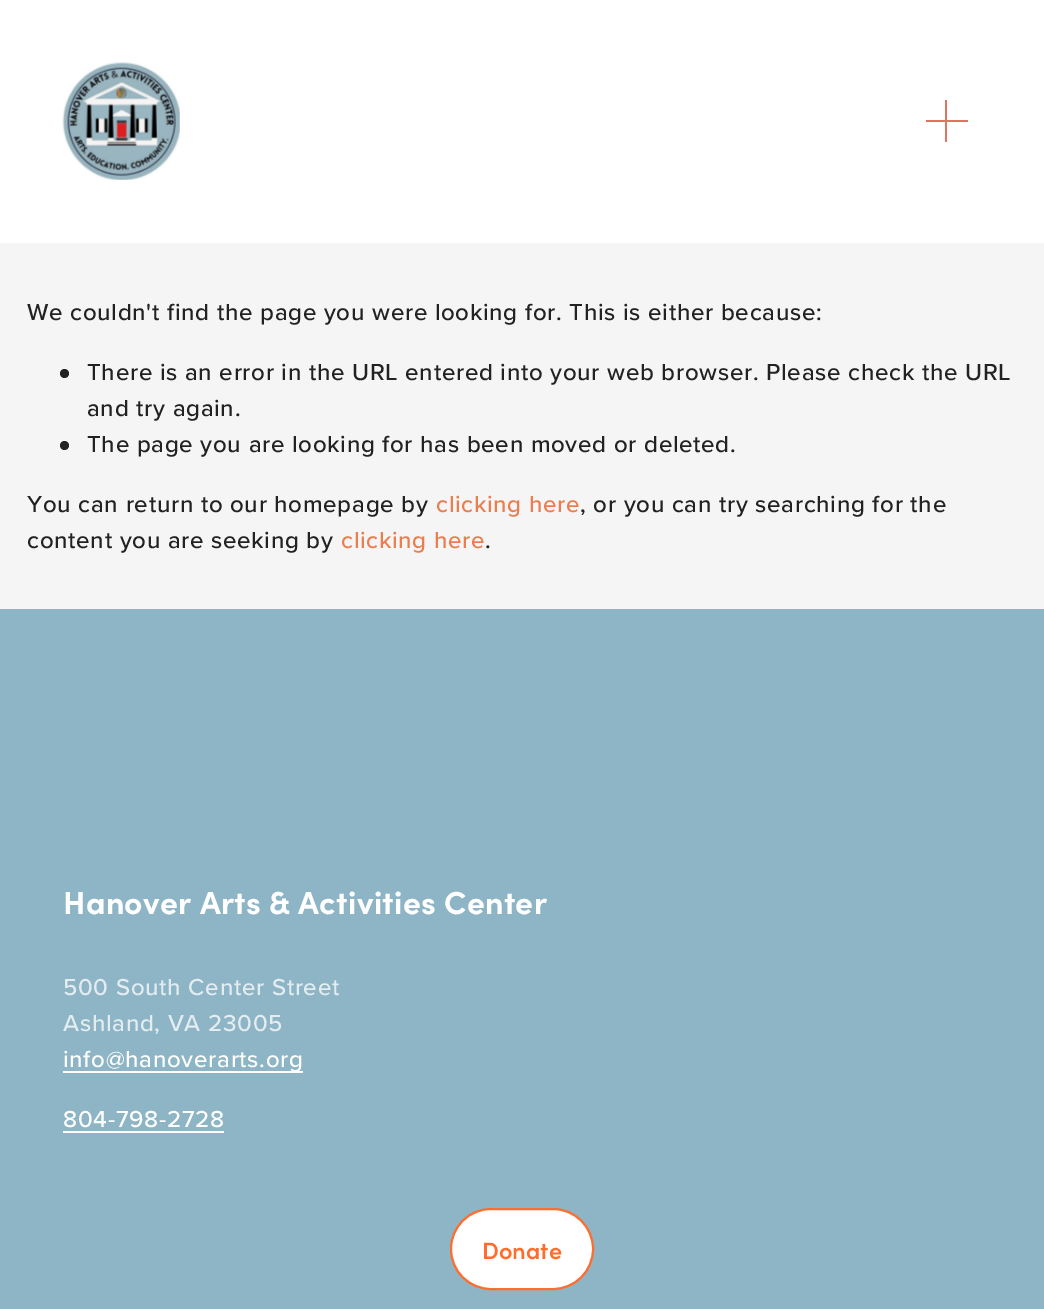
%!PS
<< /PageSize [1044 1309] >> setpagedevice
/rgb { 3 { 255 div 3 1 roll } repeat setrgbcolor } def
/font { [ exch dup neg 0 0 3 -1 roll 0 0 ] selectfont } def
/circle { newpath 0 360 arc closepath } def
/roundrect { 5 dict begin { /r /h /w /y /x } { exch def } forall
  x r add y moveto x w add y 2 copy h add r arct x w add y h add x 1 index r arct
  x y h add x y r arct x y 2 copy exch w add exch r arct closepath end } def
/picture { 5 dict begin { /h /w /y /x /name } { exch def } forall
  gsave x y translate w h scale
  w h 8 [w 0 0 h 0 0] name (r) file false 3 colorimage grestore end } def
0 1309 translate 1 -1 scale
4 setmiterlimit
245 245 245 rgb
0 0 1044 1309 rectfill
255 255 255 rgb
0 0 1044 243 rectfill
(img/1.rgb) 62 62 118 118 picture
227 114 99 rgb
926 120 42 2 rectfill
945 100 2 42 rectfill
34 34 34 rgb
64.5 373.5 4.5 circle fill
64.5 445.5 4.5 circle fill
[
  [0 609 1044 700 141 181 198]
  [63 1071 240 2 255 255 255]
  [63 1131 161 2 255 255 255]
] { aload pop rgb rectfill } forall
451 1209 142 80 40 roundrect gsave fill grestore
255 109 46 rgb
2 setlinewidth
stroke
/ProximaNova-Medium 24 font
34 34 34 rgb
27 320 moveto 0.72 0 (We couldn't find the page you were looking for. This is either because:) ashow
87 380 moveto 0.72 0 (There is an error in the URL entered into your web browser. Please check the URL) ashow
87 416 moveto 0.72 0 (and try again.) ashow
87 452 moveto 0.72 0 (The page you are looking for has been moved or deleted.) ashow
27 512 moveto 0.72 0 (You can return to our homepage by) ashow
235 126 79 rgb
436 512 moveto 0.72 0 (clicking here) ashow
34 34 34 rgb
580 512 moveto 0.72 0 (, or you can try searching for the) ashow
27 548 moveto 0.72 0 (content you are seeking by) ashow
235 126 79 rgb
341 548 moveto 0.72 0 (clicking here) ashow
34 34 34 rgb
485 548 moveto 0.72 0 (.) ashow
/Sofia-Bold 31.9 font
255 255 255 rgb
63 914 moveto 0.3 0 (Hanover Arts & Activities Center) ashow
/ProximaNova-Medium 24 font
227 237 241 rgb
63 995 moveto 0.72 0 (500 South Center Street) ashow
63 1031 moveto 0.72 0 (Ashland, VA 23005) ashow
255 255 255 rgb
63 1067 moveto 0.72 0 (info@hanoverarts.org) ashow
63 1127 moveto 0.72 0 (804-798-2728) ashow
/Sofia-SemiBold 23.5 font
255 109 46 rgb
482 1259 moveto (Donate) show
showpage
